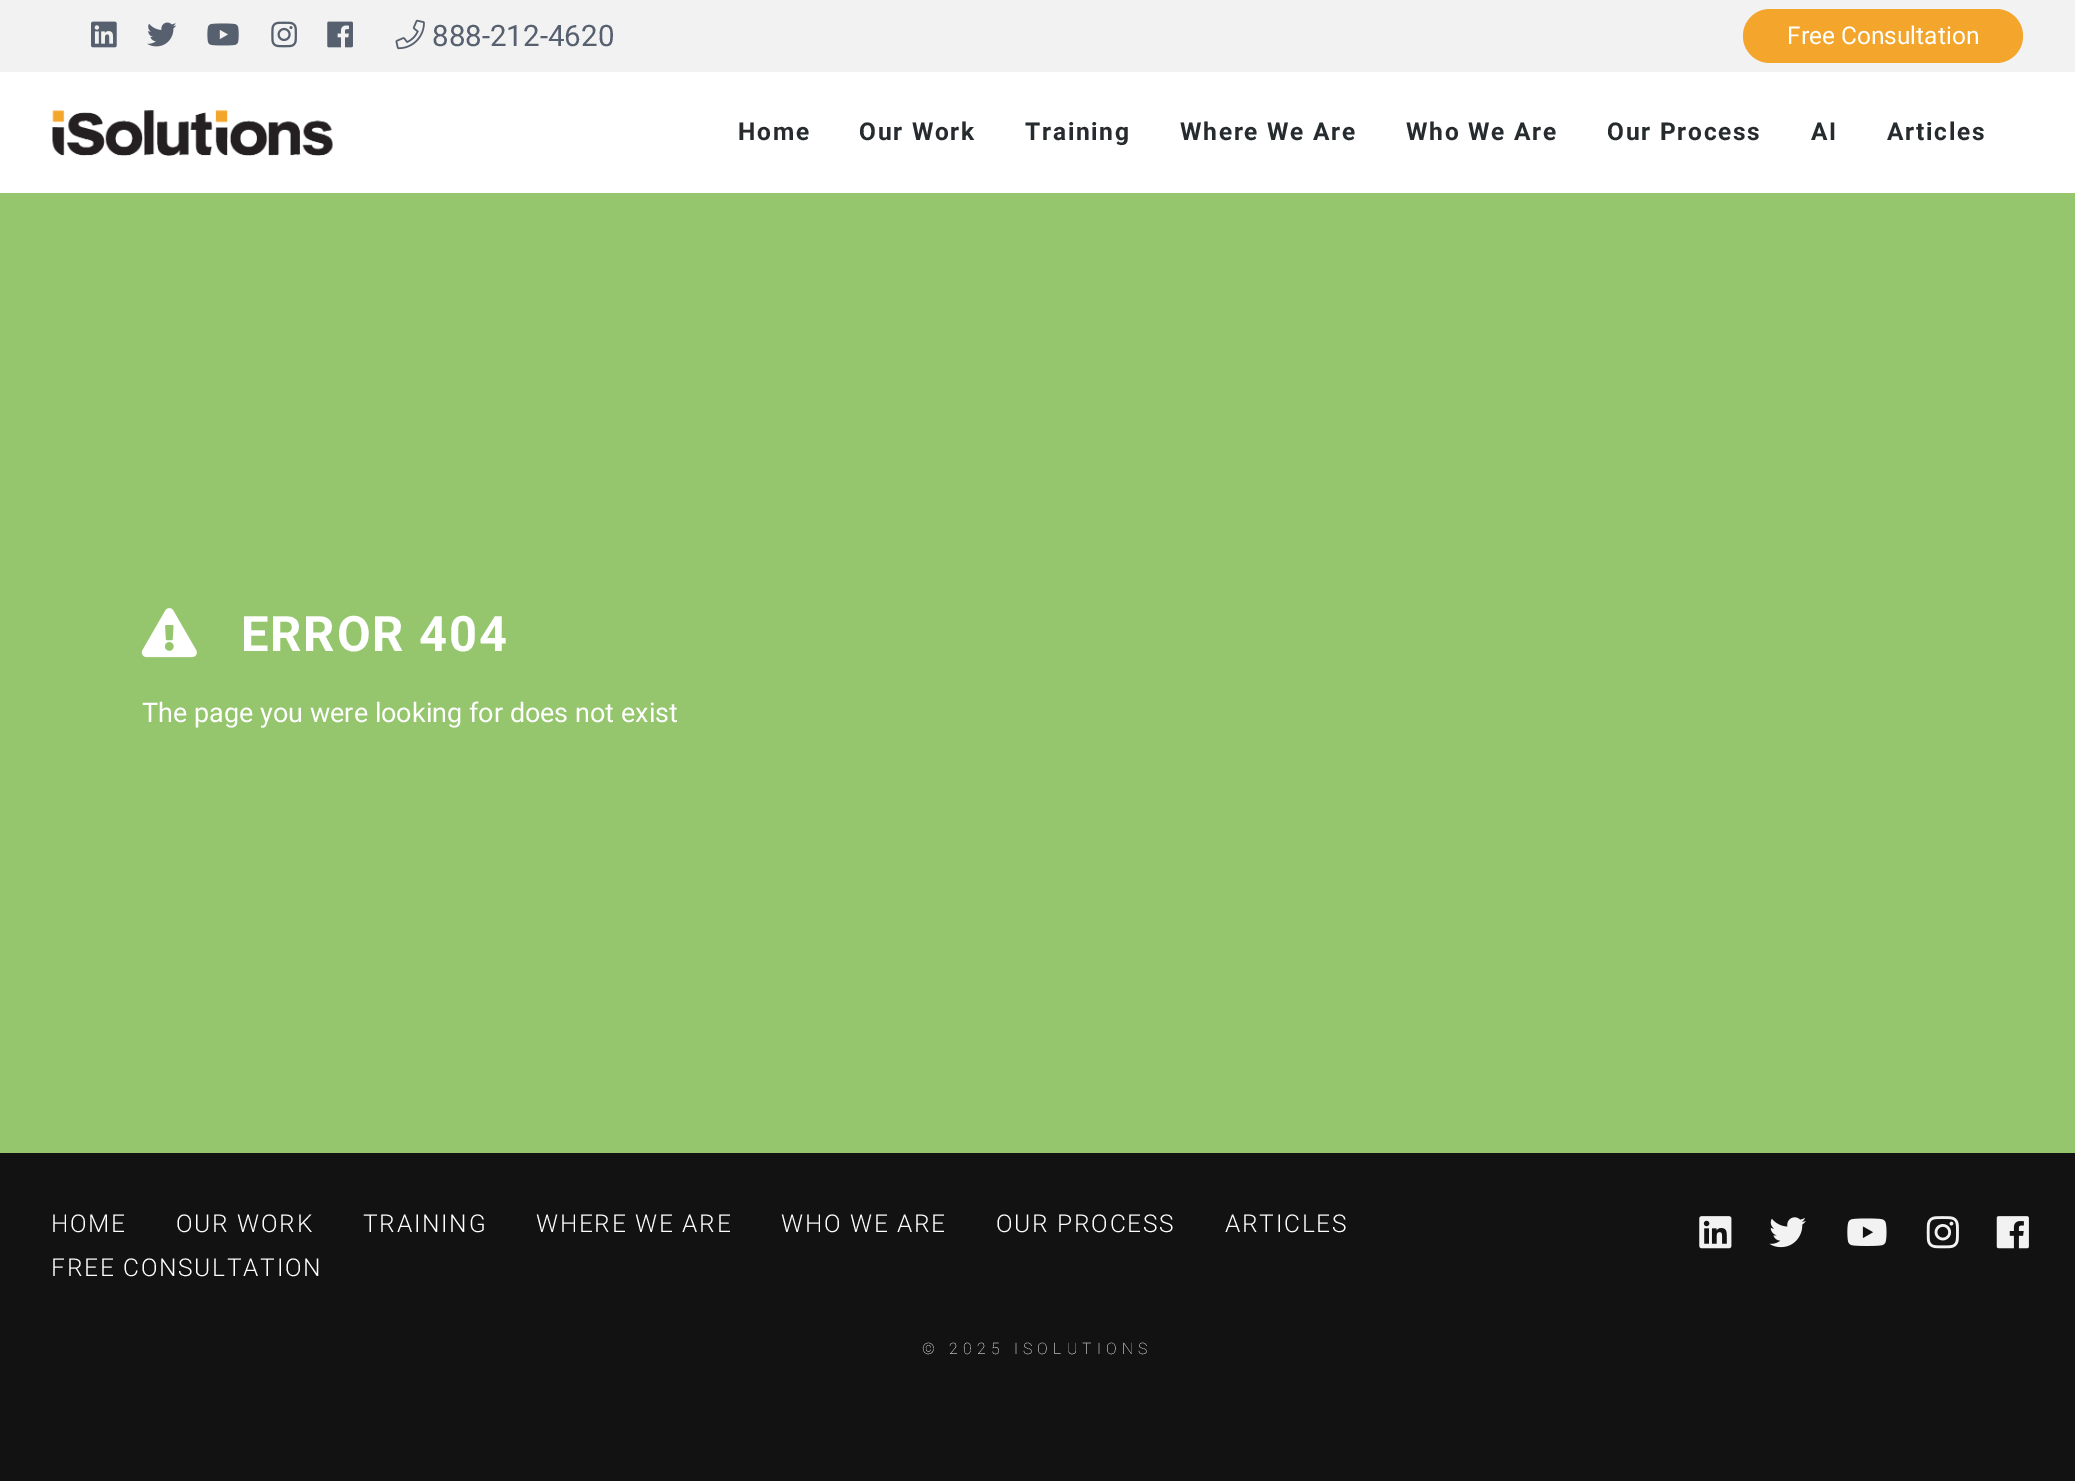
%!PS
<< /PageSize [2075 1481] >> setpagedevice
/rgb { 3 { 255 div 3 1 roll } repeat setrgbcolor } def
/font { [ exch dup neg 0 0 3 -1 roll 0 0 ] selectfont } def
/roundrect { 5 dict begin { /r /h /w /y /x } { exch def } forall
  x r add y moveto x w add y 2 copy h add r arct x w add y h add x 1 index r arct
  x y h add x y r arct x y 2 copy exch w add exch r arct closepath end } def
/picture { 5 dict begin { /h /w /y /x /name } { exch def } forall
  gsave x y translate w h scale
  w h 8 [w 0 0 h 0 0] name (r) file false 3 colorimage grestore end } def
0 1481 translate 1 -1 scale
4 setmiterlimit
18 18 18 rgb
0 0 2075 1481 rectfill
242 242 242 rgb
0 0 2075 72 rectfill
(img/1.rgb) 91 21 26 27 picture
(img/2.rgb) 147 22 30 25 picture
(img/3.rgb) 207 23 32 23 picture
(img/4.rgb) 271 21 26 27 picture
(img/5.rgb) 327 21 26 27 picture
(img/6.rgb) 395 19 30 31 picture
244 166 44 rgb
1743 9 280 54 27 roundrect fill
255 255 255 rgb
0 72 2075 121 rectfill
(img/7.rgb) 52 110 281 46 picture
149 198 109 rgb
0 193 2075 960 rectfill
(img/8.rgb) 141 608 56 50 picture
(img/9.rgb) 1699 1216 33 33 picture
(img/10.rgb) 1769 1217 37 31 picture
(img/11.rgb) 1847 1218 40 28 picture
(img/12.rgb) 1926 1216 33 33 picture
(img/13.rgb) 1996 1216 33 33 picture
/Roboto-Regular 29.5 font
87 96 111 rgb
432 46 moveto (888-212-4620) show
/Roboto-Regular 24.5 font
255 255 255 rgb
1787 44 moveto (Free Consultation) show
/Roboto-Bold 24.5 font
38 43 46 rgb
738 140 moveto 1.75 0 (Home) ashow
859 140 moveto 1.75 0 (Our Work) ashow
1025 140 moveto 1.75 0 (Training) ashow
1180 140 moveto 1.75 0 (Where We Are) ashow
1406 140 moveto 1.75 0 (Who We Are) ashow
1607 140 moveto 1.75 0 (Our Process) ashow
1811 140 moveto 1.75 0 (AI) ashow
1887 140 moveto 1.75 0 (Articles) ashow
/Roboto-Bold 49 font
255 255 255 rgb
241 651 moveto 1.75 0 (ERROR 404) ashow
/Roboto-Regular 27 font
142 722 moveto (The page you were looking for does not exist) show
/Roboto-Light 24.5 font
51 1232 moveto 1.75 0 (HOME) ashow
176 1232 moveto 1.75 0 (OUR WORK) ashow
363 1232 moveto 1.75 0 (TRAINING) ashow
536 1232 moveto 1.75 0 (WHERE WE ARE) ashow
781 1232 moveto 1.75 0 (WHO WE ARE) ashow
996 1232 moveto 1.75 0 (OUR PROCESS) ashow
1225 1232 moveto 1.75 0 (ARTICLES) ashow
51 1276 moveto 1.75 0 (FREE CONSULTATION) ashow
/Roboto-Thin 15.75 font
922 1354 moveto 5.25 0 (© 2025 ISOLUTIONS) ashow
showpage
